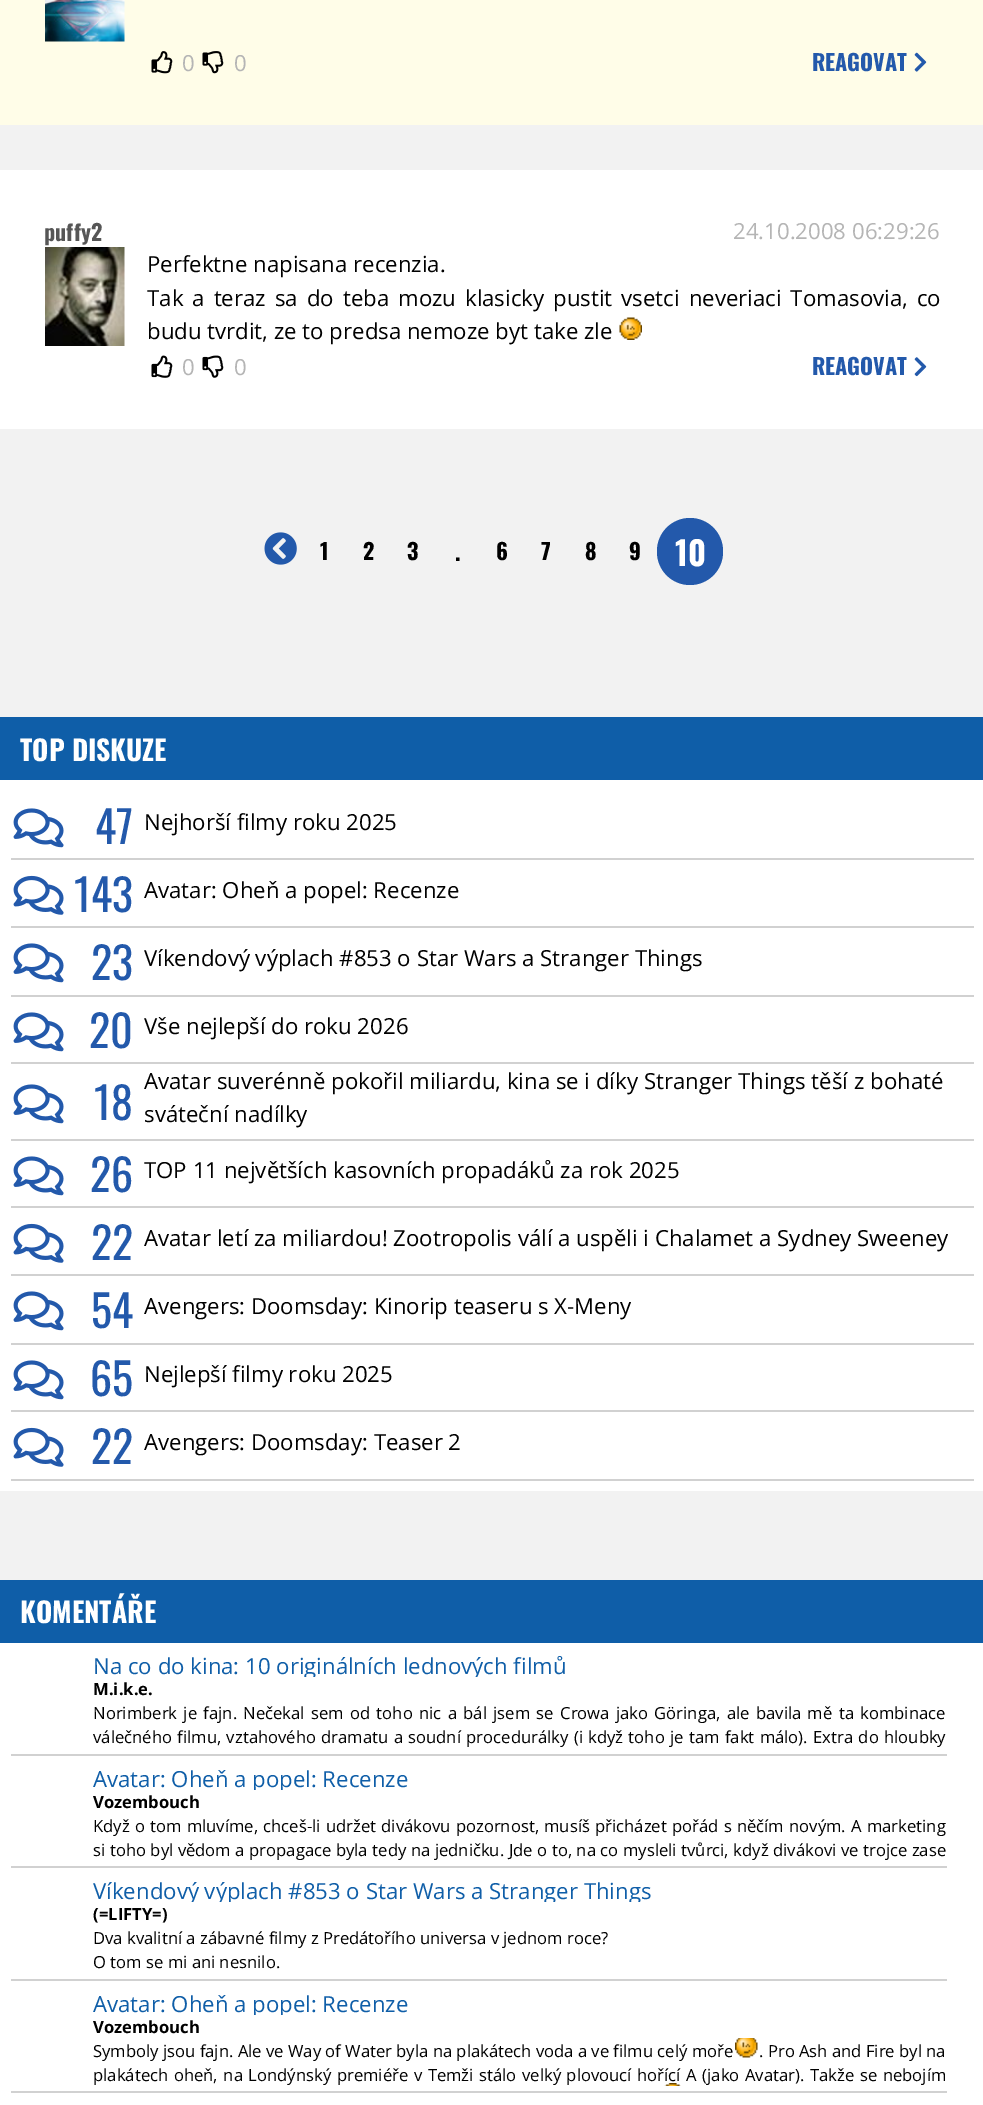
%!PS
<< /PageSize [983 2105] >> setpagedevice
/rgb { 3 { 255 div 3 1 roll } repeat setrgbcolor } def
/font { [ exch dup neg 0 0 3 -1 roll 0 0 ] selectfont } def
/roundrect { 5 dict begin { /r /h /w /y /x } { exch def } forall
  x r add y moveto x w add y 2 copy h add r arct x w add y h add x 1 index r arct
  x y h add x y r arct x y 2 copy exch w add exch r arct closepath end } def
/picture { 5 dict begin { /h /w /y /x /name } { exch def } forall
  gsave x y translate w h scale
  w h 8 [w 0 0 h 0 0] name (r) file false 3 colorimage grestore end } def
0 2105 translate 1 -1 scale
4 setmiterlimit
242 242 242 rgb
0 0 983 2105 rectfill
255 253 232 rgb
0 0 983 125 rectfill
(img/1.rgb) 45 0 80 42 picture
(img/2.rgb) 151 51 22 23 picture
(img/3.rgb) 202 51 22 23 picture
(img/4.rgb) 914 52 13 20 picture
255 255 255 rgb
0 170 983 259 rectfill
(img/5.rgb) 45 247 80 99 picture
(img/6.rgb) 619 317 23 23 picture
(img/7.rgb) 151 355 22 23 picture
(img/8.rgb) 202 355 22 23 picture
(img/9.rgb) 914 357 13 20 picture
(img/10.rgb) 264 532 33 33 picture
35 89 171 rgb
657 518 66 67 33 roundrect fill
[
  [0 780 983 711 255 255 255]
  [0 717 983 63 15 94 168]
  [11 858 963 2 209 209 209]
] { aload pop rgb rectfill } forall
(img/11.rgb) 13 808 51 40 picture
11 926 963 2 rectfill
(img/12.rgb) 13 875 51 40 picture
11 995 963 2 rectfill
(img/11.rgb) 13 943 51 40 picture
11 1062 963 2 rectfill
(img/11.rgb) 13 1012 51 40 picture
11 1139 963 2 rectfill
(img/11.rgb) 13 1084 51 40 picture
11 1206 963 2 rectfill
(img/11.rgb) 13 1156 51 40 picture
11 1274 963 2 rectfill
(img/12.rgb) 13 1223 51 40 picture
11 1343 963 2 rectfill
(img/11.rgb) 13 1291 51 40 picture
11 1410 963 2 rectfill
(img/11.rgb) 13 1360 51 40 picture
11 1479 963 2 rectfill
(img/12.rgb) 13 1427 51 40 picture
[
  [0 1643 983 462 255 255 255]
  [0 1580 983 63 15 94 168]
  [11 1754 936 2 209 209 209]
  [11 1866 936 2 209 209 209]
  [11 1979 936 2 209 209 209]
  [11 2091 936 2 209 209 209]
] { aload pop rgb rectfill } forall
(img/13.rgb) 735 2038 23 20 picture
/OpenSans-Regular 22.2 font
181 181 181 rgb
182 71 moveto (0) show
234 71 moveto (0) show
/Oswald-Bold 22.2 font
35 89 171 rgb
812 71 moveto (REAGOVAT) show
86 86 86 rgb
44 241 moveto (puffy2) show
/OpenSans-Regular 22.2 font
181 181 181 rgb
733 239 moveto (24.10.2008 06:29:26) show
0 0 0 rgb
147 272 moveto (Perfektne napisana recenzia.) show
147 306 moveto 3.25 0 32 (Tak a teraz sa do teba mozu klasicky pustit vsetci neveriaci Tomasovia, co) widthshow
147 339 moveto (budu tvrdit, ze to predsa nemoze byt take zle) show
181 181 181 rgb
182 375 moveto (0) show
234 375 moveto (0) show
/Oswald-Bold 22.2 font
35 89 171 rgb
812 375 moveto (REAGOVAT) show
0 0 0 rgb
[
  [(1) 320 560]
  [(2) 363 560]
  [(3) 407 560]
  [(.) 455 561]
  [(6) 496 560]
  [(7) 541 560]
  [(8) 585 560]
  [(9) 629 560]
] { aload pop moveto show } forall
/Oswald-Bold 33 font
255 255 255 rgb
675 566 moveto (10) show
/Oswald-Bold 27.75 font
20 761 moveto (TOP DISKUZE) show
/Oswald-Regular 44 font
35 89 171 rgb
95 844 moveto (47) show
/OpenSans-Regular 22.2 font
0 0 0 rgb
144 830 moveto (Nejhorší filmy roku 2025) show
/Oswald-Regular 44 font
35 89 171 rgb
74 912 moveto (143) show
/OpenSans-Regular 22.2 font
0 0 0 rgb
144 898 moveto (Avatar: Oheň a popel: Recenze) show
/Oswald-Regular 44 font
35 89 171 rgb
91 980 moveto (23) show
/OpenSans-Regular 22.2 font
0 0 0 rgb
144 966 moveto (Víkendový výplach #853 o Star Wars a Stranger Things) show
/Oswald-Regular 44 font
35 89 171 rgb
89 1048 moveto (20) show
/OpenSans-Regular 22.2 font
0 0 0 rgb
144 1034 moveto (Vše nejlepší do roku 2026) show
/Oswald-Regular 44 font
35 89 171 rgb
94 1120 moveto (18) show
/OpenSans-Regular 22.2 font
0 0 0 rgb
144 1089 moveto (Avatar suverénně pokořil miliardu, kina se i díky Stranger Things těší z bohaté) show
144 1122 moveto (sváteční nadílky) show
/Oswald-Regular 44 font
35 89 171 rgb
90 1192 moveto (26) show
/OpenSans-Regular 22.2 font
0 0 0 rgb
144 1178 moveto (TOP 11 největších kasovních propadáků za rok 2025) show
/Oswald-Regular 44 font
35 89 171 rgb
91 1260 moveto (22) show
/OpenSans-Regular 22.2 font
0 0 0 rgb
144 1246 moveto (Avatar letí za miliardou! Zootropolis válí a uspěli i Chalamet a Sydney Sweeney) show
/Oswald-Regular 44 font
35 89 171 rgb
91 1328 moveto (54) show
/OpenSans-Regular 22.2 font
0 0 0 rgb
144 1314 moveto (Avengers: Doomsday: Kinorip teaseru s X-Meny) show
/Oswald-Regular 44 font
35 89 171 rgb
90 1396 moveto (65) show
/OpenSans-Regular 22.2 font
0 0 0 rgb
144 1382 moveto (Nejlepší filmy roku 2025) show
/Oswald-Regular 44 font
35 89 171 rgb
91 1464 moveto (22) show
/OpenSans-Regular 22.2 font
0 0 0 rgb
144 1450 moveto (Avengers: Doomsday: Teaser 2) show
/Oswald-Bold 27.75 font
255 255 255 rgb
20 1623 moveto (KOMENTÁŘE) show
gsave
93 1653 854 24 rectclip
/OpenSans-Regular 22.2 font
15 94 168 rgb
93 1674 moveto (Na co do kina: 10 originálních lednových filmů) show
grestore
/OpenSans-Bold 16.65 font
0 0 0 rgb
93 1695 moveto (M.i.k.e.) show
/OpenSans-Regular 16.65 font
93 1719 moveto 2 0 32 (Norimberk je fajn. Nečekal sem od toho nic a bál jsem se Crowa jako Göringa, ale bavila mě ta kombinace) widthshow
93 1743 moveto 1 0 32 (válečného filmu, vztahového dramatu a soudní procedurálky \(i když toho je tam fakt málo\). Extra do hloubky) widthshow
gsave
93 1766 854 24 rectclip
/OpenSans-Regular 22.2 font
15 94 168 rgb
93 1787 moveto (Avatar: Oheň a popel: Recenze) show
grestore
/OpenSans-Bold 16.65 font
93 1808 moveto (Vozembouch) show
/OpenSans-Regular 16.65 font
93 1832 moveto 0.9 0 32 (Když o tom mluvíme, chceš-li udržet divákovu pozornost, musíš přicházet pořád s něčím novým. A marketing) widthshow
93 1856 moveto 0.2 0 32 (si toho byl vědom a propagace byla tedy na jedničku. Jde o to, na co mysleli tvůrci, když divákovi ve trojce zase) widthshow
gsave
93 1878 854 24 rectclip
/OpenSans-Regular 22.2 font
15 94 168 rgb
93 1899 moveto (Víkendový výplach #853 o Star Wars a Stranger Things) show
grestore
/OpenSans-Bold 16.65 font
93 1920 moveto (\(=LIFTY=\)) show
/OpenSans-Regular 16.65 font
93 1944 moveto (Dva kvalitní a zábavné filmy z Predátořího universa v jednom roce?) show
93 1968 moveto (O tom se mi ani nesnilo.) show
gsave
93 1991 854 24 rectclip
/OpenSans-Regular 22.2 font
15 94 168 rgb
93 2012 moveto (Avatar: Oheň a popel: Recenze) show
grestore
/OpenSans-Bold 16.65 font
93 2033 moveto (Vozembouch) show
/OpenSans-Regular 16.65 font
93 2057 moveto (Symboly jsou fajn. Ale ve Way of Water byla na plakátech voda a ve filmu celý moře) show
759 2057 moveto (. Pro Ash and Fire byl na) show
93 2081 moveto 1.25 0 32 (plakátech oheň, na Londýnský premiéře v Temži stálo velký plovoucí hořící A \(jako Avatar\). Takže se nebojím) widthshow
(img/14.rgb) 664 2083 17 3 picture
showpage
